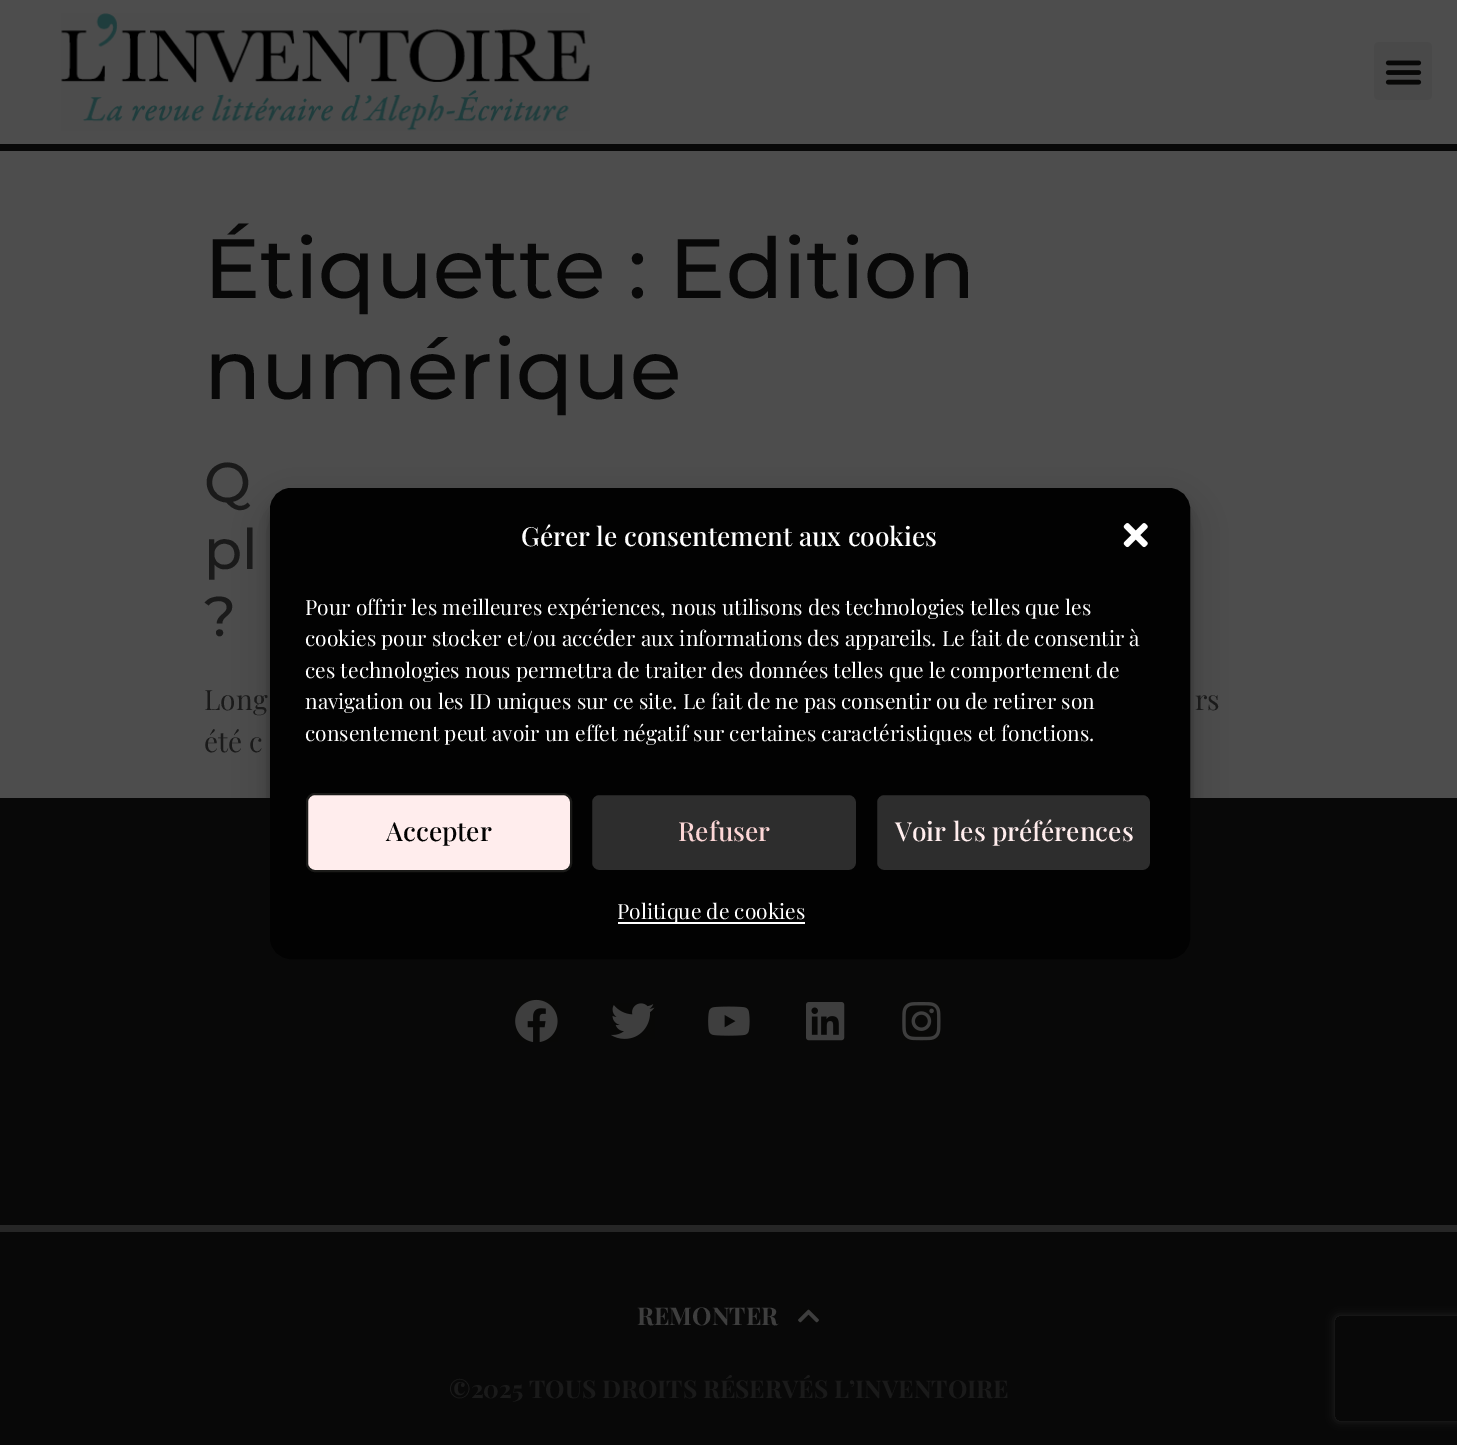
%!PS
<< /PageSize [1457 1445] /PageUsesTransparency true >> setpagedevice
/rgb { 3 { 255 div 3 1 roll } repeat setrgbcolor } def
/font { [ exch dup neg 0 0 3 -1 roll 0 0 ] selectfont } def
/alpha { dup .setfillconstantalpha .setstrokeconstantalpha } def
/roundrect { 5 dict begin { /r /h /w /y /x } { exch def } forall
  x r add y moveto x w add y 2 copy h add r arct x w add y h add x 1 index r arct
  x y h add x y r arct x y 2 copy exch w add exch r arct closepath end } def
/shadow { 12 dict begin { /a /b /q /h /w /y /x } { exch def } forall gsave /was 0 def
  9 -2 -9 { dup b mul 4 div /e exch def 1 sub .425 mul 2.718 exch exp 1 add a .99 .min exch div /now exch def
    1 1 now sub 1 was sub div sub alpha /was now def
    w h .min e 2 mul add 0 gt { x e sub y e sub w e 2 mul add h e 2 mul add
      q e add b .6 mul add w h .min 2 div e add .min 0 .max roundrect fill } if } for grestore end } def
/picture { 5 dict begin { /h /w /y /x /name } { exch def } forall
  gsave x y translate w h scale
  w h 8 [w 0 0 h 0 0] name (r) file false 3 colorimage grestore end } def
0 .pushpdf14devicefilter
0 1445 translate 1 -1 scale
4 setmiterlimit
77 77 77 rgb
0 0 1457 1445 rectfill
8 8 8 rgb
0 144 1457 7 rectfill
(img/1.rgb) 61 13 529 118 picture
73 73 73 rgb
1374 42 58 58 5 roundrect fill
(img/2.rgb) 1385 60 37 25 picture
8 8 8 rgb
0 798 1457 647 rectfill
0 0 0 rgb
270 499 920 471 21 5 0.23 shadow
(img/4.rgb) 515 999 43 43 picture
(img/5.rgb) 611 1003 44 36 picture
(img/6.rgb) 708 1006 42 30 picture
(img/7.rgb) 806 1002 39 39 picture
(img/8.rgb) 902 1002 39 39 picture
270 506 920 471 21 17.5 0.19 shadow
2 2 2 rgb
271 489 918 469 20 roundrect gsave fill grestore
2 setlinewidth
stroke
(img/3.rgb) 1123 523 25 25 picture
255 237 237 rgb
307 794 264 77 8 roundrect gsave fill grestore
27 27 25 rgb
stroke
45 45 45 rgb
591 794 266 77 8 roundrect gsave fill grestore
2 2 2 rgb
stroke
45 45 45 rgb
876 794 275 77 8 roundrect gsave fill grestore
2 2 2 rgb
stroke
255 255 255 rgb
618 922 187 2 rectfill
38 38 38 rgb
0 1225 1457 7 rectfill
(img/9.rgb) 798 1309 21 14 picture
gsave
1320 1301 moveto 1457 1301 lineto 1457 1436 lineto 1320 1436 lineto closepath 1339 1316 moveto 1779 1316 lineto 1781 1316 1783 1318 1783 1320 curveto 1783 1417 lineto 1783 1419 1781 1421 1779 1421 curveto 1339 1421 lineto 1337 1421 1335 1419 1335 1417 curveto 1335 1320 lineto 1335 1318 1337 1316 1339 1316 curveto closepath eoclip newpath
1335 1316 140 105 4 4.5 1 shadow
grestore
/Montserrat-Medium 84 font
8 8 8 rgb
204 298 moveto (Étiquette : Edition) show
204 399 moveto (numérique) show
/Montserrat-Medium 56 font
26 26 26 rgb
[
  [(Q) 204 502]
  [(pl) 204 569]
  [(?) 204 636]
] { aload pop moveto show } forall
/PlayfairDisplay-Regular 28 font
[
  [(Long) 204 710]
  [(rs) 1195 710]
  [(été c) 204 752]
] { aload pop moveto show } forall
/PlayfairDisplay-Medium 26.25 font
255 255 255 rgb
521 546 moveto (Gérer le consentement aux cookies) show
/PlayfairDisplay-Regular 21 font
[
  [(Pour offrir les meilleures expériences, nous utilisons des technologies telles que les) 305 615]
  [(cookies pour stocker et/ou accéder aux informations des appareils. Le fait de consentir à) 305 646]
  [(ces technologies nous permettra de traiter des données telles que le comportement de) 305 678]
  [(navigation ou les ID uniques sur ce site. Le fait de ne pas consentir ou de retirer son) 305 709]
  [(consentement peut avoir un effet négatif sur certaines caractéristiques et fonctions.) 305 741]
] { aload pop moveto show } forall
/PlayfairDisplay-Medium 26.25 font
2 2 2 rgb
386 841 moveto (Accepter) show
252 214 214 rgb
678 841 moveto (Refuser) show
255 237 237 rgb
895 841 moveto (Voir les préférences) show
/PlayfairDisplay-Regular 21 font
255 255 255 rgb
617 919 moveto (Politique de cookies) show
/PlayfairDisplay-Bold 24.5 font
62 62 62 rgb
637 1325 moveto (REMONTER) show
26 26 26 rgb
449 1398 moveto (©2025 TOUS DROITS RÉSERVÉS L’INVENTOIRE) show
.poppdf14devicefilter showpage
